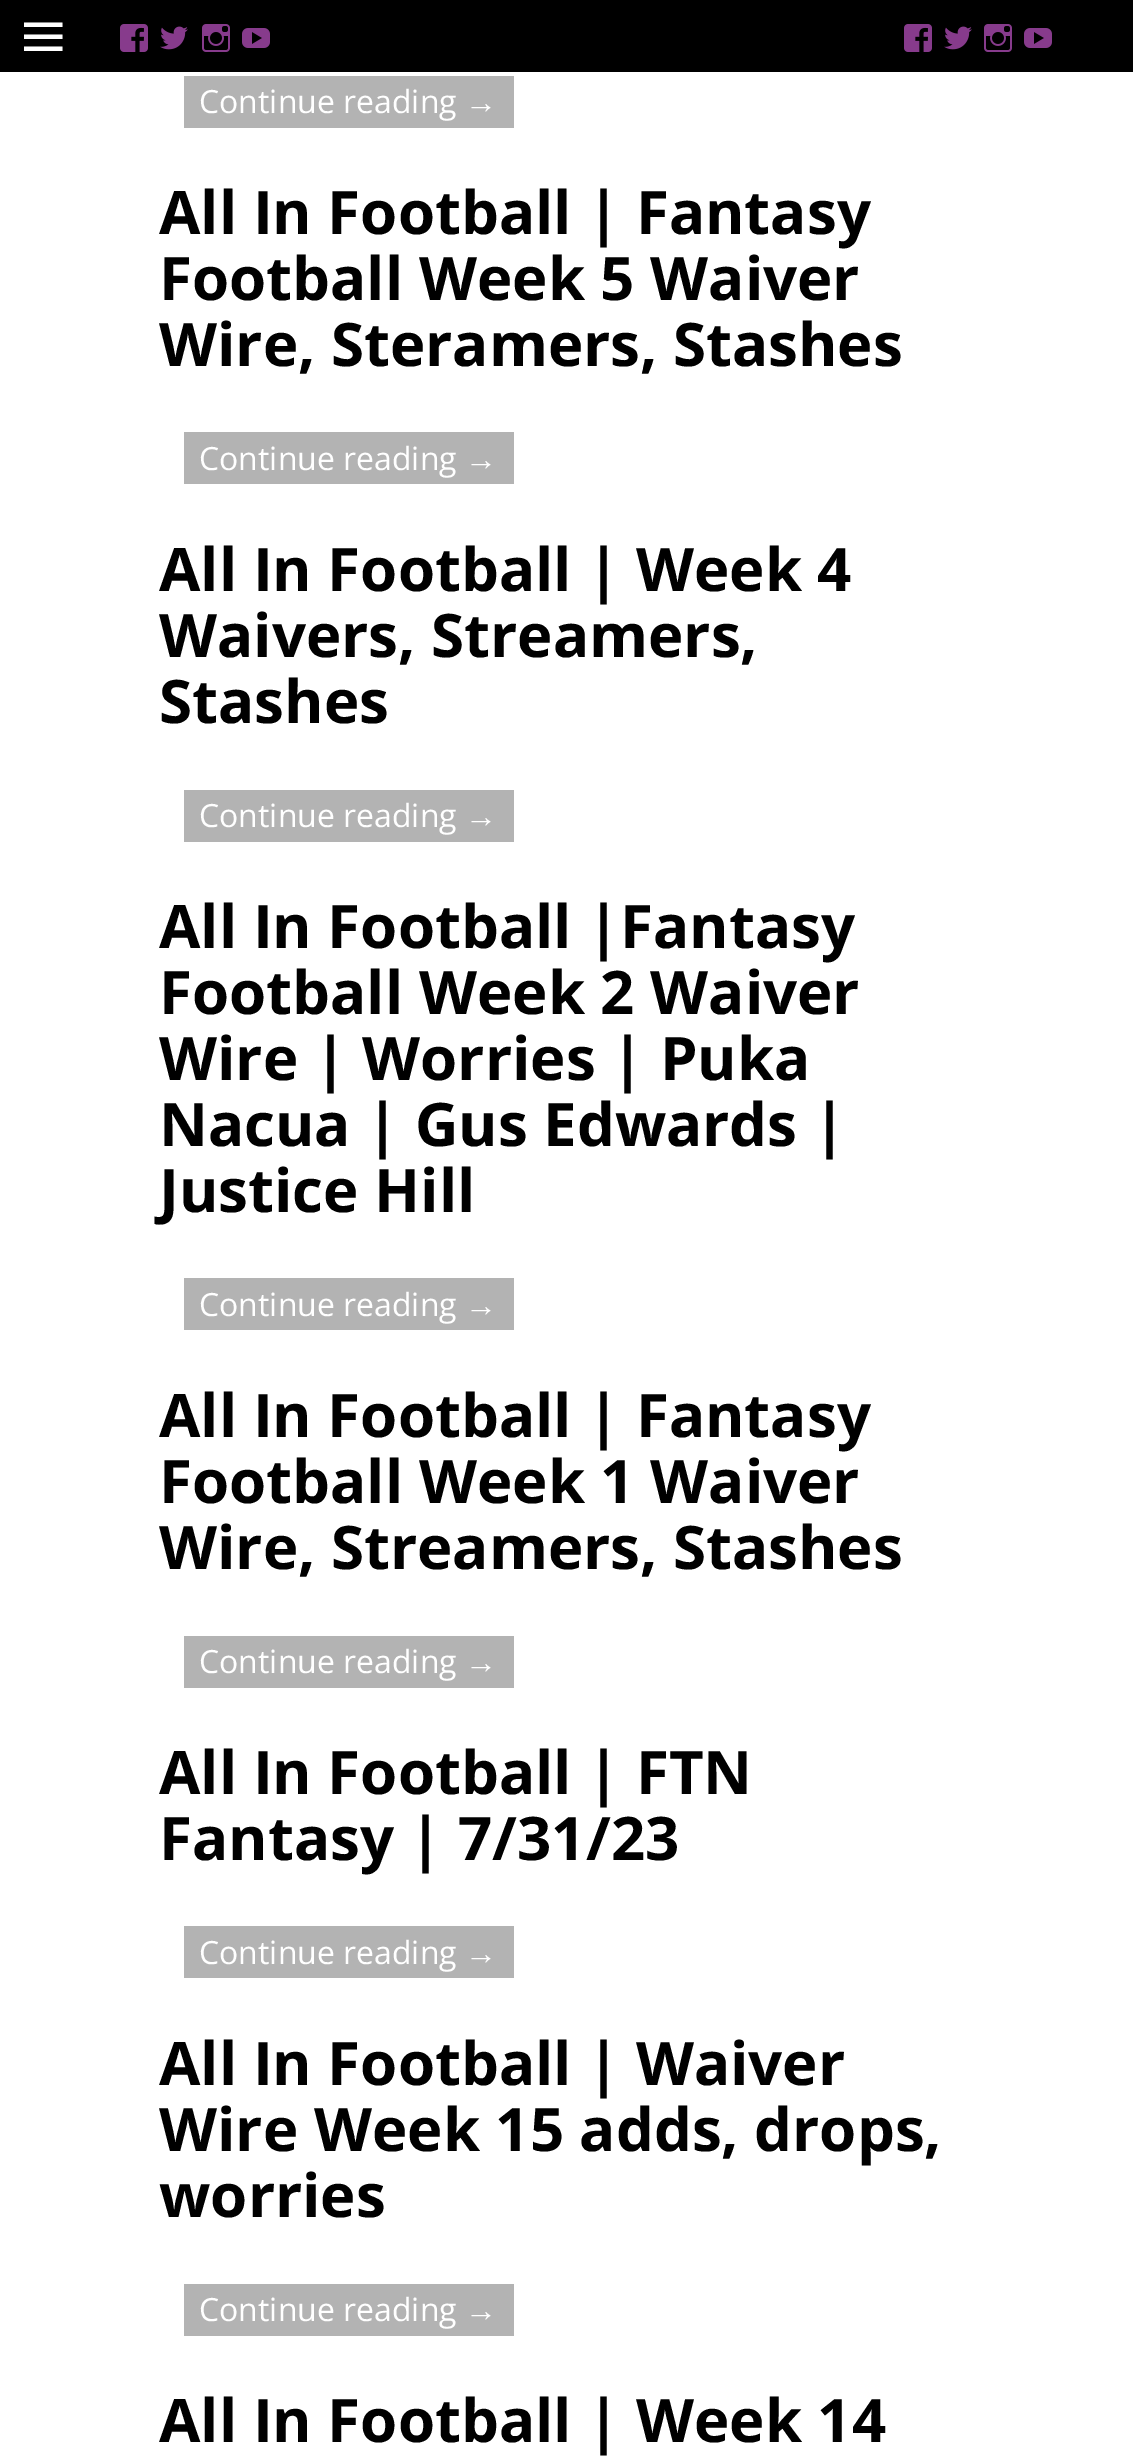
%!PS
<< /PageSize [1133 2458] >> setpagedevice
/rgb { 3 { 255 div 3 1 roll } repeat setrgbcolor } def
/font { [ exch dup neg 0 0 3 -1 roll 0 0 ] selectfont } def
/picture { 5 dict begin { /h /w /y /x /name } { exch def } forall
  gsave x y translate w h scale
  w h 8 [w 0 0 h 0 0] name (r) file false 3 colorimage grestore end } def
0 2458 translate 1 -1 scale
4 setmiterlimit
255 255 255 rgb
0 0 1133 2458 rectfill
0 0 0 rgb
0 0 1133 72 rectfill
255 255 255 rgb
24 51 moveto 24 46.5 lineto 62.5 46.5 lineto 62.5 51 lineto closepath 24 22.5 moveto 62.5 22.5 lineto 62.5 27 lineto 24 27 lineto closepath 24 39 moveto 24 34.5 lineto 62.5 34.5 lineto 62.5 39 lineto closepath fill
(img/1.rgb) 120 24 28 28 picture
(img/2.rgb) 160 26 28 24 picture
(img/3.rgb) 202 24 28 28 picture
(img/4.rgb) 242 28 28 20 picture
(img/1.rgb) 904 24 28 28 picture
(img/2.rgb) 944 26 28 24 picture
(img/3.rgb) 984 24 28 28 picture
(img/4.rgb) 1024 28 28 20 picture
[
  [184 76 330 52 179 179 179]
  [184 432 330 52 179 179 179]
  [184 790 330 52 179 179 179]
  [184 1278 330 52 179 179 179]
  [184 1636 330 52 179 179 179]
  [184 1926 330 52 179 179 179]
  [184 2284 330 52 179 179 179]
] { aload pop rgb rectfill } forall
/OpenSans-Regular 32 font
255 255 255 rgb
199 113 moveto (Continue reading) show
/LiberationSans-Regular 32 font
465 113 moveto (→) show
/OpenSans-Bold 60 font
0 0 0 rgb
[
  [(All In Football | Fantasy) 159 234]
  [(Football Week 5 Waiver) 159 300]
  [(Wire, Steramers, Stashes) 159 366]
] { aload pop moveto show } forall
/OpenSans-Regular 32 font
255 255 255 rgb
199 470 moveto (Continue reading) show
/LiberationSans-Regular 32 font
465 470 moveto (→) show
/OpenSans-Bold 60 font
0 0 0 rgb
[
  [(All In Football | Week 4) 159 591]
  [(Waivers, Streamers,) 159 657]
  [(Stashes) 159 723]
] { aload pop moveto show } forall
/OpenSans-Regular 32 font
255 255 255 rgb
199 827 moveto (Continue reading) show
/LiberationSans-Regular 32 font
465 827 moveto (→) show
/OpenSans-Bold 60 font
0 0 0 rgb
[
  [(All In Football |Fantasy) 159 948]
  [(Football Week 2 Waiver) 159 1014]
  [(Wire | Worries | Puka) 159 1080]
  [(Nacua | Gus Edwards |) 159 1146]
  [(Justice Hill) 159 1212]
] { aload pop moveto show } forall
/OpenSans-Regular 32 font
255 255 255 rgb
199 1316 moveto (Continue reading) show
/LiberationSans-Regular 32 font
465 1316 moveto (→) show
/OpenSans-Bold 60 font
0 0 0 rgb
[
  [(All In Football | Fantasy) 159 1437]
  [(Football Week 1 Waiver) 159 1503]
  [(Wire, Streamers, Stashes) 159 1569]
] { aload pop moveto show } forall
/OpenSans-Regular 32 font
255 255 255 rgb
199 1673 moveto (Continue reading) show
/LiberationSans-Regular 32 font
465 1673 moveto (→) show
/OpenSans-Bold 60 font
0 0 0 rgb
159 1794 moveto (All In Football | FTN) show
159 1860 moveto (Fantasy | 7/31/23) show
/OpenSans-Regular 32 font
255 255 255 rgb
199 1964 moveto (Continue reading) show
/LiberationSans-Regular 32 font
465 1964 moveto (→) show
/OpenSans-Bold 60 font
0 0 0 rgb
[
  [(All In Football | Waiver) 159 2085]
  [(Wire Week 15 adds, drops,) 159 2151]
  [(worries) 159 2217]
] { aload pop moveto show } forall
/OpenSans-Regular 32 font
255 255 255 rgb
199 2321 moveto (Continue reading) show
/LiberationSans-Regular 32 font
465 2321 moveto (→) show
/OpenSans-Bold 60 font
0 0 0 rgb
159 2442 moveto (All In Football | Week 14) show
showpage
